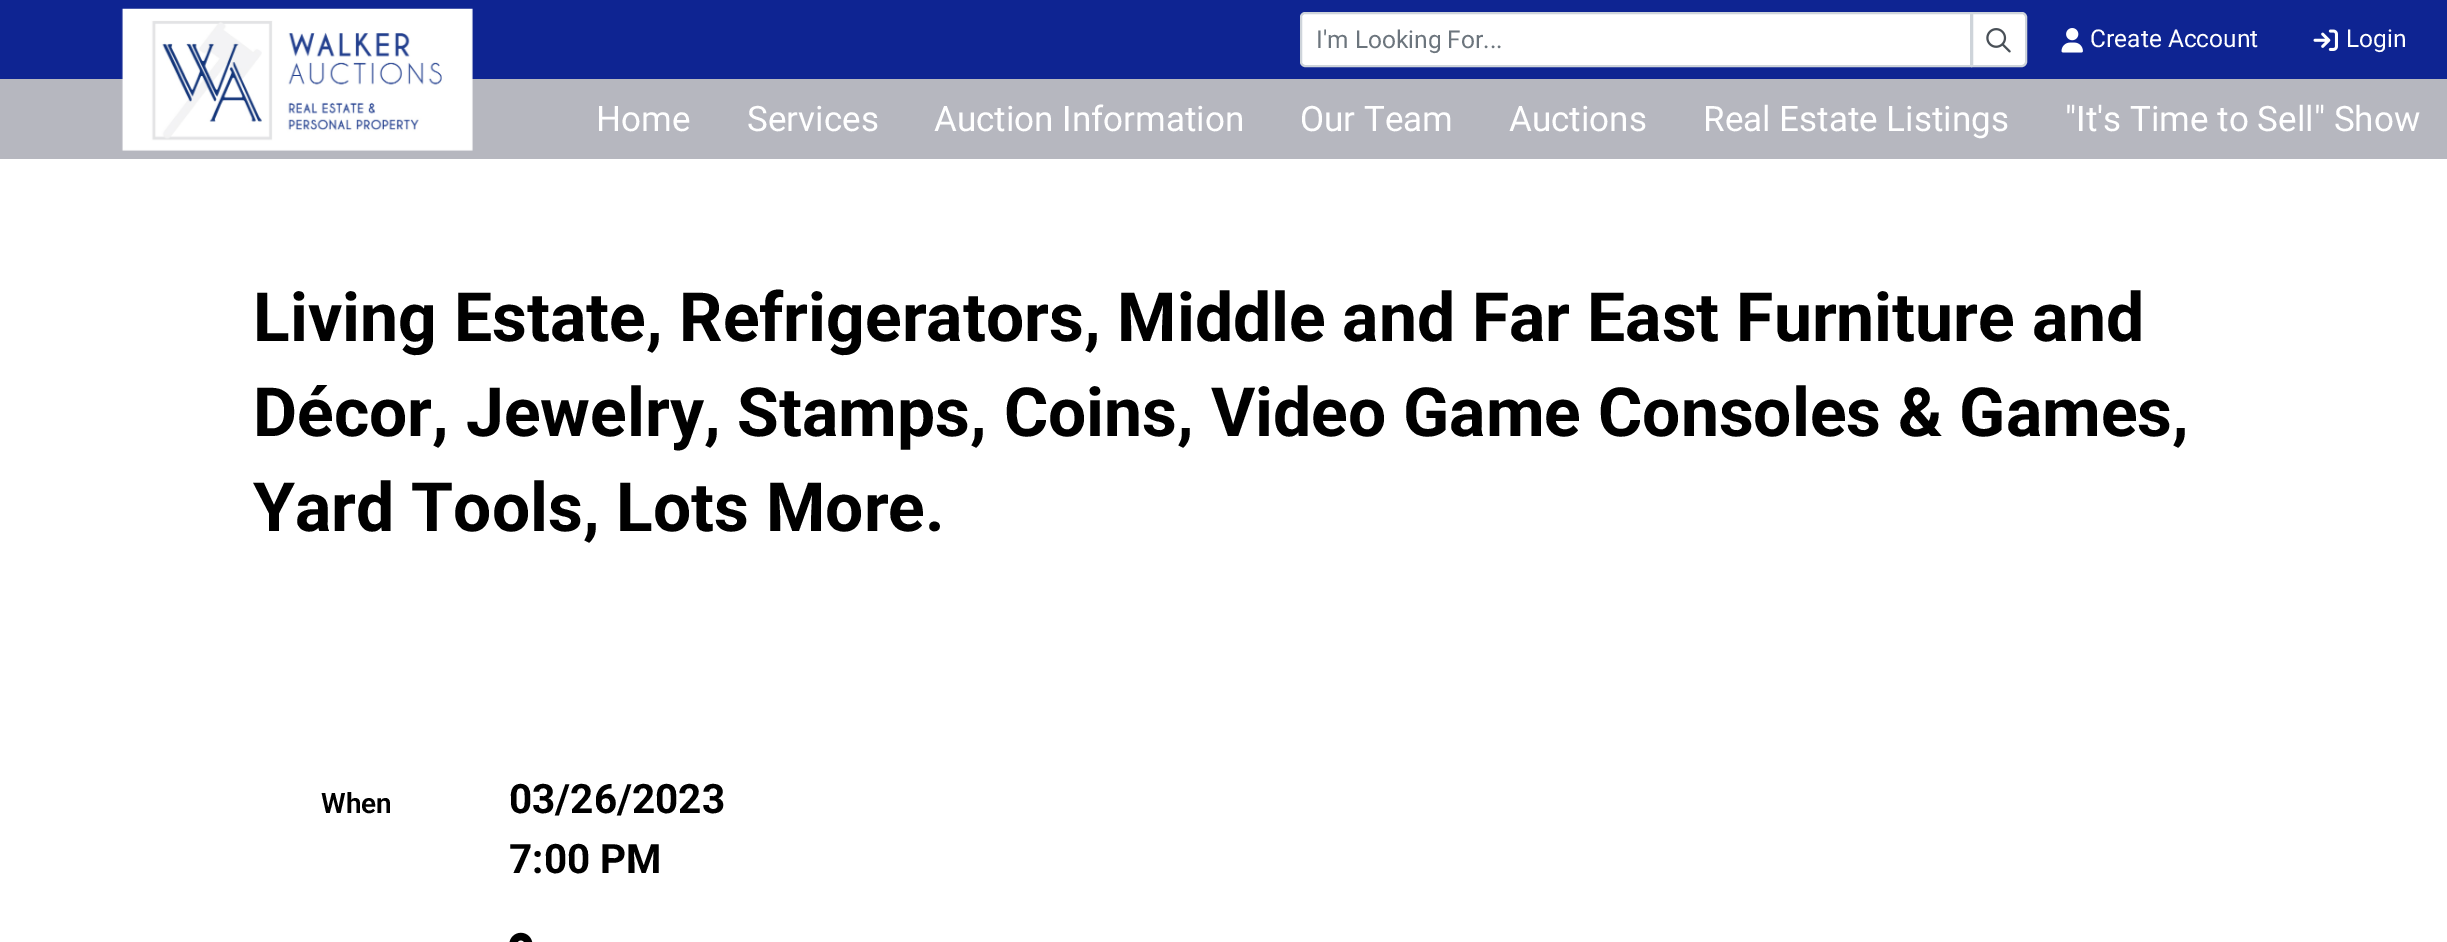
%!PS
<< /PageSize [2447 942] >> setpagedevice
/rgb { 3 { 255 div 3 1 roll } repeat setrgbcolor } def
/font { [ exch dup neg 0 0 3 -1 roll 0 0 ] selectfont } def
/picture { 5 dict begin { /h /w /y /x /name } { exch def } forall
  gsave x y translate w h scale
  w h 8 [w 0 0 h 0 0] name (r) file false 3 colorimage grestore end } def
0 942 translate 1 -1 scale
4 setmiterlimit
255 255 255 rgb
0 0 2447 942 rectfill
14 36 146 rgb
0 0 2447 79 rectfill
182 183 191 rgb
0 79 2447 80 rectfill
(img/1.rgb) 121 8 352 143 picture
255 255 255 rgb
1972 13 moveto 2022 13 lineto 2024 13 2026 15 2026 17 curveto 2026 62 lineto 2026 64 2024 66 2022 66 curveto 1972 66 lineto closepath gsave fill grestore
206 212 218 rgb
2 setlinewidth
stroke
255 255 255 rgb
1305 13 moveto 1971 13 lineto 1971 66 lineto 1305 66 lineto 1303 66 1301 64 1301 62 curveto 1301 17 lineto 1301 15 1303 13 1305 13 curveto closepath gsave fill grestore
206 212 218 rgb
stroke
(img/2.rgb) 1986 28 25 25 picture
(img/3.rgb) 2061 28 22 25 picture
(img/4.rgb) 2313 29 25 22 picture
(img/5.rgb) 509 932 24 10 picture
/Roboto-Regular 24.5 font
108 117 125 rgb
1316 48 moveto (I'm Looking For...) show
255 255 255 rgb
2090 47 moveto (Create Account) show
2346 47 moveto (Login) show
/Roboto-Regular 35 font
[
  [(Home) 596 131]
  [(Services) 747 131]
  [(Auction Information) 934 131]
  [(Our Team) 1300 131]
  [(Auctions) 1509 131]
  [(Real Estate Listings) 1703 131]
  [("It's Time to Sell" Show) 2065 131]
] { aload pop moveto show } forall
/Roboto-Bold 67.85 font
0 0 0 rgb
[
  [(Living Estate, Refrigerators, Middle and Far East Furniture and) 253 341]
  [(Décor, Jewelry, Stamps, Coins, Video Game Consoles & Games,) 253 436]
  [(Yard Tools, Lots More.) 253 531]
] { aload pop moveto show } forall
/Roboto-SemiBold 28 font
321 813 moveto (When) show
/Roboto-Bold 40.5 font
509 813 moveto (03/26/2023) show
509 873 moveto (7:00 PM) show
showpage
